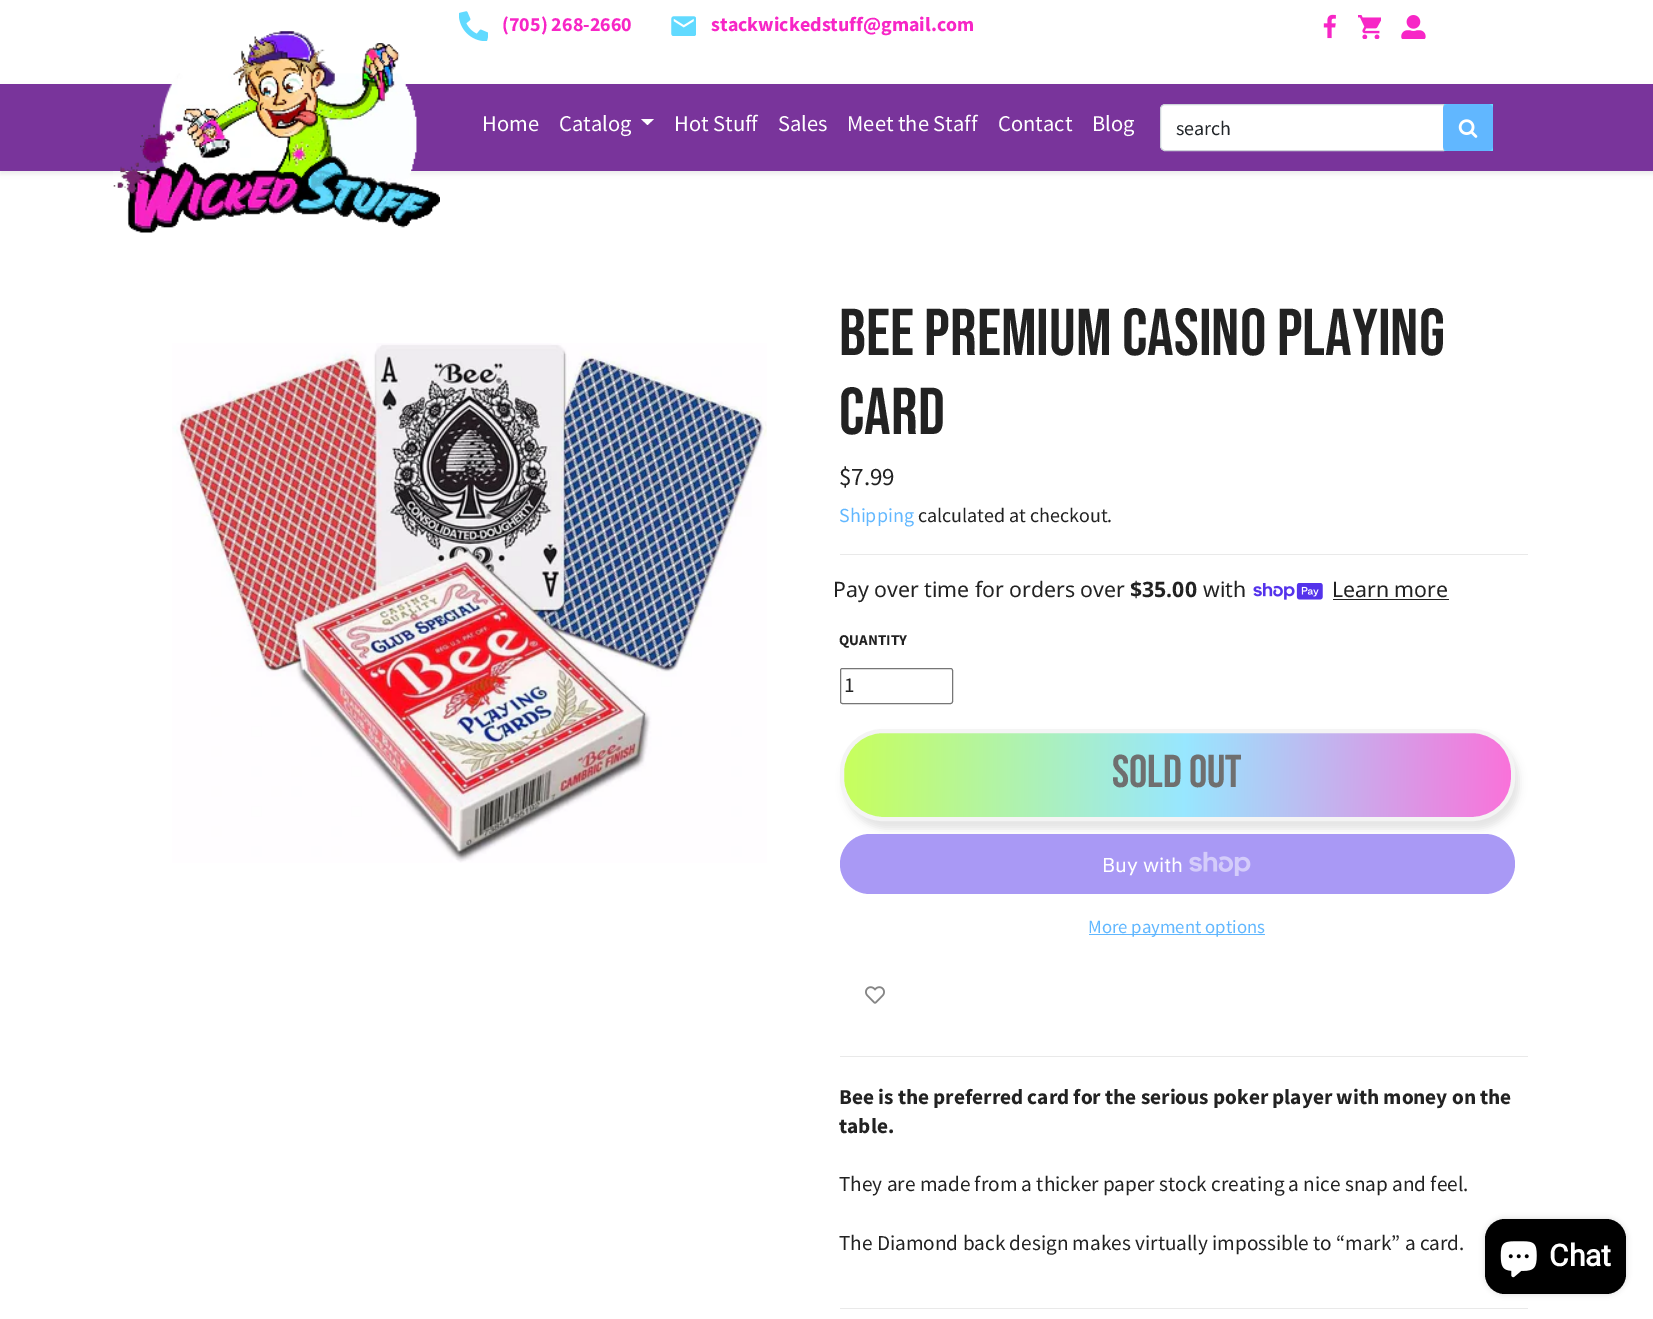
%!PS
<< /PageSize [1653 1319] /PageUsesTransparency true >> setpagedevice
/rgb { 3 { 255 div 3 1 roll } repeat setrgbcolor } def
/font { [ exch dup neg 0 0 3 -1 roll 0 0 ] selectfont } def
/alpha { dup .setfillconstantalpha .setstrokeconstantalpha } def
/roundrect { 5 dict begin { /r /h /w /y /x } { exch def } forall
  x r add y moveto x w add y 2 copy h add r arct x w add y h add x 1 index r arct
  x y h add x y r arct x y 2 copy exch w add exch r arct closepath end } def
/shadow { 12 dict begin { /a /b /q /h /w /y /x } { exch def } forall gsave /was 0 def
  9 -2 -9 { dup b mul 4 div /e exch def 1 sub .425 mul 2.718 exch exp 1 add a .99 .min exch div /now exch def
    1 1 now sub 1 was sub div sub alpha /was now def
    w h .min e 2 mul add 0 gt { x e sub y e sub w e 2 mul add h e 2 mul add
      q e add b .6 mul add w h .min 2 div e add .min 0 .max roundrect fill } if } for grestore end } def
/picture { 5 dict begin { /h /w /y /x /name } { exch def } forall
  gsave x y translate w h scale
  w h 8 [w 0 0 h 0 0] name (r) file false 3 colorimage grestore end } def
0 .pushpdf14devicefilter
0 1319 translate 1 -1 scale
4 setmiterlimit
255 255 255 rgb
0 0 1653 1319 rectfill
(img/1.rgb) 459 11 29 30 picture
(img/2.rgb) 671 16 25 20 picture
(img/3.rgb) 1323 14 13 25 picture
(img/4.rgb) 1358 15 23 24 picture
(img/5.rgb) 1401 15 25 24 picture
0 0 0 rgb
0 86 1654 88 0 2.5 0.07 shadow
121 52 155 rgb
0 84 1653 87 rectfill
(img/6.rgb) 113 31 327 202 picture
255 255 255 rgb
641 119 moveto 654 119 lineto 647.5 125 lineto closepath fill
1165 104.5 moveto 1443.5 104.5 lineto 1443.5 150.5 lineto 1165 150.5 lineto 1162.5 150.5 1160.5 148.5 1160.5 146 curveto 1160.5 109 lineto 1160.5 106.5 1162.5 104.5 1165 104.5 curveto closepath gsave fill grestore
206 212 218 rgb
stroke
97 218 255 rgb
1444 104 49 47 rectfill
97 183 255 rgb
1443 104 50 47 5 roundrect fill
(img/7.rgb) 1458 119 20 19 picture
(img/8.rgb) 172 343 595 520 picture
233 233 233 rgb
840 554 688 1 rectfill
(img/9.rgb) 1253 583 70 17 picture
34 34 34 rgb
1333 599 116 1 rectfill
118 118 118 rgb
840.5 668.5 112 35 2 roundrect stroke
89 89 89 rgb
844 736 675 93 43 4 0.16 shadow
gsave 844 733 667 85 39 roundrect clip newpath
<< /ShadingType 2 /ColorSpace /DeviceRGB /Coords [843 769 1512 781] /Extend [true true] /Function << /FunctionType 3 /Domain [0 1] /Functions [<< /FunctionType 2 /Domain [0 1] /C0 [0.784 1 0.361] /C1 [0.596 0.906 1] /N 1 >> << /FunctionType 2 /Domain [0 1] /C0 [0.596 0.906 1] /C1 [0.98 0.447 0.855] /N 1 >>] /Bounds [0.51] /Encode [0 1 0 1] >> >> shfill grestore
244 244 244 rgb
4 setlinewidth
842 731 671 88 41 roundrect stroke
169 153 245 rgb
840 834 675 60 30 roundrect fill
(img/10.rgb) 1189 851 62 25 picture
97 183 255 rgb
1089 934 176 1 rectfill
(img/11.rgb) 865 986 20 18 picture
233 233 233 rgb
840 1056 688 1 rectfill
840 1308 688 1 rectfill
0 0 0 rgb
1485 1219 141 75 20 3 0.15 shadow
1485 1219 141 75 20 roundrect fill
(img/12.rgb) 1500 1241 37 37 picture
/SourceSansPro-Bold 20 font
247 38 198 rgb
502 31 moveto (\(705\) 268-2660) show
711 31 moveto (stackwickedstuff@gmail.com) show
/SourceSansPro-Regular 22.5 font
255 255 255 rgb
[
  [(Home) 482 131]
  [(Catalog) 559 131]
  [(Hot Stuff) 674 131]
  [(Sales) 778 131]
  [(Meet the Staff) 847 131]
  [(Contact) 998 131]
  [(Blog) 1092 131]
] { aload pop moveto show } forall
/SourceSansPro-Regular 20 font
33 37 41 rgb
1176 135 moveto (search) show
/BebasNeue-Regular 66.25 font
34 34 34 rgb
839 355 moveto (BEE PREMIUM CASINO PLAYING) show
839 434 moveto (CARD) show
/SourceSansPro-Regular 25 font
839 485 moveto ($7.99) show
/SourceSansPro-Regular 20 font
97 183 255 rgb
839 522 moveto (Shipping) show
34 34 34 rgb
918 522 moveto (calculated at checkout.) show
/NotoSans-Regular 21.25 font
833 597 moveto (Pay over time for orders over) show
/NotoSans-Bold 21.25 font
1130 597 moveto ($35.00) show
/NotoSans-Regular 21.25 font
1203 597 moveto (with) show
1332 597 moveto (Learn more) show
/SourceSansPro-Bold 15 font
839 645 moveto (QUANTITY) show
/SourceSansPro-Regular 21.25 font
844 692 moveto (1) show
/BebasNeue-Bold 46 font
111 111 111 rgb
1112 787 moveto (Sold Out) show
/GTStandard-Regular 20 font
255 255 255 rgb
1102 872 moveto (Buy with) show
/SourceSansPro-Regular 18.75 font
97 183 255 rgb
1088 933 moveto (More payment options) show
/SourceSansPro-Bold 21.25 font
34 34 34 rgb
839 1104 moveto (Bee is the preferred card for the serious poker player with money on the) show
839 1133 moveto (table.) show
/SourceSansPro-Regular 21.25 font
839 1191 moveto (They are made from a thicker paper stock creating a nice snap and feel.) show
839 1250 moveto (The Diamond back design makes virtually impossible to “mark” a card.) show
/Roboto-Bold 30 font
255 255 255 rgb
1549 1266 moveto (Chat) show
.poppdf14devicefilter showpage
